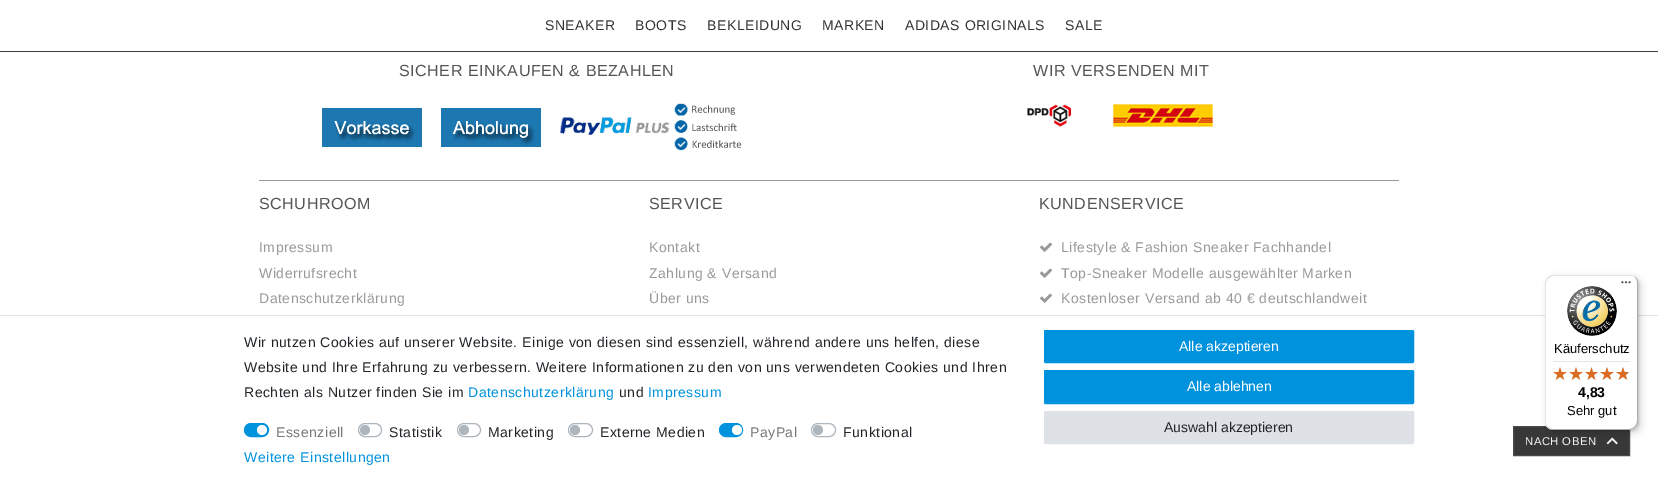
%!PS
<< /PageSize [1658 484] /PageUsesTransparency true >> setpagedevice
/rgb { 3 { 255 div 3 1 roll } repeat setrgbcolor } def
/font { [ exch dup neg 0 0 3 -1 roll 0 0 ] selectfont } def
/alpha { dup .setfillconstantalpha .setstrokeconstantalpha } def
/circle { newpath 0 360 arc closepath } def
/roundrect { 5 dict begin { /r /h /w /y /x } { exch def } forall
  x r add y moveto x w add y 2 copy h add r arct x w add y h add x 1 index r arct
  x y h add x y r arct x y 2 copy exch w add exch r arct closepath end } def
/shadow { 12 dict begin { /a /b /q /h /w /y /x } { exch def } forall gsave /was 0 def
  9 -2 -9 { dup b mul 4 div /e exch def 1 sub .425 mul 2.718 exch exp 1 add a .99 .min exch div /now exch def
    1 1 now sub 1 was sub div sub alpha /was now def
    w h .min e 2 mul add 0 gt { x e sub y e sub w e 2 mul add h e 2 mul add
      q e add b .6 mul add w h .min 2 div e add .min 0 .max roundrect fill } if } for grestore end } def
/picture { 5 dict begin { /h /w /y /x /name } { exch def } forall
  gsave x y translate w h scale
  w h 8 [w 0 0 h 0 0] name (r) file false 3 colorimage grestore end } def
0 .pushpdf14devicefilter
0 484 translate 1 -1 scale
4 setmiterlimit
255 255 255 rgb
0 0 1658 484 rectfill
60 60 60 rgb
0 51 1658 1 rectfill
(img/1.rgb) 322 108 100 39 picture
(img/2.rgb) 441 108 100 39 picture
(img/3.rgb) 559 103 183 48 picture
(img/4.rgb) 1027 104 45 23 picture
(img/5.rgb) 1113 104 100 23 picture
153 153 153 rgb
259 180 1140 1 rectfill
(img/6.rgb) 1040 242 12 10 picture
(img/6.rgb) 1040 268 12 10 picture
(img/6.rgb) 1040 293 12 10 picture
222 226 230 rgb
0 315 1658 1 rectfill
0 146 221 rgb
244.5 423.5 24 13 6.5 roundrect gsave fill grestore
stroke
255 255 255 rgb
262 430 5 circle fill
173 181 189 rgb
358.5 423.5 23 13 6.5 roundrect stroke
365 430 5 circle fill
457.5 423.5 23 13 6.5 roundrect stroke
464 430 5 circle fill
568.5 423.5 24 13 6.5 roundrect stroke
575 430 5 circle fill
0 146 221 rgb
719.5 423.5 23 13 6.5 roundrect gsave fill grestore
stroke
255 255 255 rgb
737 430 5 circle fill
173 181 189 rgb
811.5 423.5 24 13 6.5 roundrect stroke
818 430 5 circle fill
0 146 221 rgb
1044.5 330.5 369 32 1 roundrect gsave fill grestore
stroke
1044.5 370.5 369 33 1 roundrect gsave fill grestore
stroke
222 226 230 rgb
1044.5 411.5 369 32 1 roundrect gsave fill grestore
stroke
56 56 56 rgb
1513.5 426.5 moveto 1629.5 426.5 lineto 1629.5 455.5 lineto 1513.5 455.5 lineto closepath gsave fill grestore
74 74 74 rgb
stroke
(img/7.rgb) 1606 437 12 8 picture
0 0 0 rgb
1548 278 93 155 8 4 0.15 shadow
1546 276 93 155 8 1 0.15 shadow
255 255 255 rgb
1545 275 93 155 8 roundrect fill
229 229 229 rgb
1554 276 moveto 1631 276 lineto 1633 276 1635 277 1637 279 curveto 1635 277 1633 275 1630 275 curveto 1553 275 lineto 1549 275 1545 279 1545 283 curveto 1545 422 lineto 1545 425 1547 427 1549 429 curveto 1547 427 1546 425 1546 423 curveto 1546 284 lineto 1546 280 1550 276 1554 276 curveto closepath fill
0.2 alpha
0 0 0 rgb
1546 426 moveto 1548 428 1550 430 1553 430 curveto 1630 430 lineto 1634 430 1638 426 1638 422 curveto 1638 283 lineto 1638 280 1636 278 1634 276 curveto 1636 278 1637 280 1637 282 curveto 1637 421 lineto 1637 425 1633 429 1629 429 curveto 1552 429 lineto 1550 429 1548 428 1546 426 curveto closepath fill
50 50 50 rgb
1547 427 moveto 1548 429 1551 430 1553 430 curveto 1630 430 lineto 1634 430 1638 426 1638 422 curveto 1638 283 lineto 1638 281 1637 278 1635 277 curveto 1636 278 1637 280 1637 282 curveto 1637 421 lineto 1637 426 1634 429 1629 429 curveto 1552 429 lineto 1550 429 1548 428 1547 427 curveto closepath fill
1 alpha
(img/8.rgb) 1621 281 10 3 picture
0.3 alpha
255 255 255 rgb
1630 430 moveto 1634.5 430 1638 426.5 1638 422 curveto 1638 426 1634 430 1630 430 curveto closepath fill
1 alpha
(img/9.rgb) 1567 286 50 50 picture
229 229 229 rgb
1553 361 77 1 rectfill
(img/10.rgb) 1553 367 14 13 picture
(img/10.rgb) 1569 367 14 13 picture
(img/11.rgb) 1585 367 13 13 picture
(img/10.rgb) 1600 367 14 13 picture
(img/10.rgb) 1616 367 14 13 picture
(img/12.rgb) 1553 367 14 13 picture
(img/12.rgb) 1569 367 14 13 picture
(img/13.rgb) 1585 367 13 13 picture
(img/12.rgb) 1600 367 14 13 picture
(img/14.rgb) 1616 367 12 13 picture
/LiberationSans-Regular 14 font
51 51 51 rgb
545 30 moveto 0.5 0 (SNEAKER) ashow
635 30 moveto 0.5 0 (BOOTS) ashow
707 30 moveto 0.5 0 (BEKLEIDUNG) ashow
822 30 moveto 0.5 0 (MARKEN) ashow
905 30 moveto 0.5 0 (ADIDAS ORIGINALS) ashow
1065 30 moveto 0.5 0 (SALE) ashow
/LiberationSans-Regular 16.1 font
85 85 85 rgb
399 76 moveto 0.5 0 (SICHER EINKAUFEN & BEZAHLEN) ashow
1033 76 moveto 0.5 0 (WIR VERSENDEN MIT) ashow
259 209 moveto 0.5 0 (SCHUHROOM) ashow
/LiberationSans-Regular 14 font
153 153 153 rgb
259 252 moveto 0.5 0 (Impressum) ashow
259 278 moveto 0.5 0 (Widerrufsrecht) ashow
259 303 moveto 0.5 0 (Datenschutzerklärung) ashow
/LiberationSans-Regular 16.1 font
85 85 85 rgb
649 209 moveto 0.5 0 (SERVICE) ashow
/LiberationSans-Regular 14 font
153 153 153 rgb
649 252 moveto 0.5 0 (Kontakt) ashow
649 278 moveto 0.5 0 (Zahlung & Versand) ashow
649 303 moveto 0.5 0 (Über uns) ashow
/LiberationSans-Regular 16.1 font
85 85 85 rgb
1039 209 moveto 0.5 0 (KUNDENSERVICE) ashow
/LiberationSans-Regular 14 font
153 153 153 rgb
1061 252 moveto 0.5 0 (Lifestyle & Fashion Sneaker Fachhandel) ashow
1061 278 moveto 0.5 0 (Top-Sneaker Modelle ausgewählter Marken) ashow
1061 303 moveto 0.5 0 (Kostenloser Versand ab 40 € deutschlandweit) ashow
33 37 41 rgb
244 347 moveto 0.5 0 (Wir nutzen Cookies auf unserer Website. Einige von diesen sind essenziell, während andere uns helfen, diese) ashow
244 372 moveto 0.5 0 (Website und Ihre Erfahrung zu verbessern. Weitere Informationen zu den von uns verwendeten Cookies und Ihren) ashow
244 397 moveto 0.5 0 (Rechten als Nutzer finden Sie im) ashow
0 146 221 rgb
468 397 moveto 0.5 0 (Datenschutzerklärung) ashow
33 37 41 rgb
619 397 moveto 0.5 0 (und) ashow
0 146 221 rgb
648 397 moveto 0.5 0 (Impressum) ashow
118 118 118 rgb
276 437 moveto 0.5 0 (Essenziell) ashow
33 37 41 rgb
389 437 moveto 0.5 0 (Statistik) ashow
488 437 moveto 0.5 0 (Marketing) ashow
600 437 moveto 0.5 0 (Externe Medien) ashow
118 118 118 rgb
750 437 moveto 0.5 0 (PayPal) ashow
33 37 41 rgb
843 437 moveto 0.5 0 (Funktional) ashow
0 146 221 rgb
244 462 moveto 0.5 0 (Weitere Einstellungen) ashow
255 255 255 rgb
1179 351 moveto (Alle akzeptieren) show
1187 391 moveto (Alle ablehnen) show
33 37 41 rgb
1164 432 moveto (Auswahl akzeptieren) show
/LiberationSans-Regular 11.25 font
247 247 249 rgb
1525 445 moveto 0.5 0 (NACH OBEN) ashow
/LiberationSans-Regular 13 font
0 0 0 rgb
1554 353 moveto (Käuferschutz) show
/LiberationSans-Bold 14 font
1578 397 moveto (4,83) show
/LiberationSans-Regular 13 font
1567 415 moveto (Sehr gut) show
.poppdf14devicefilter showpage
